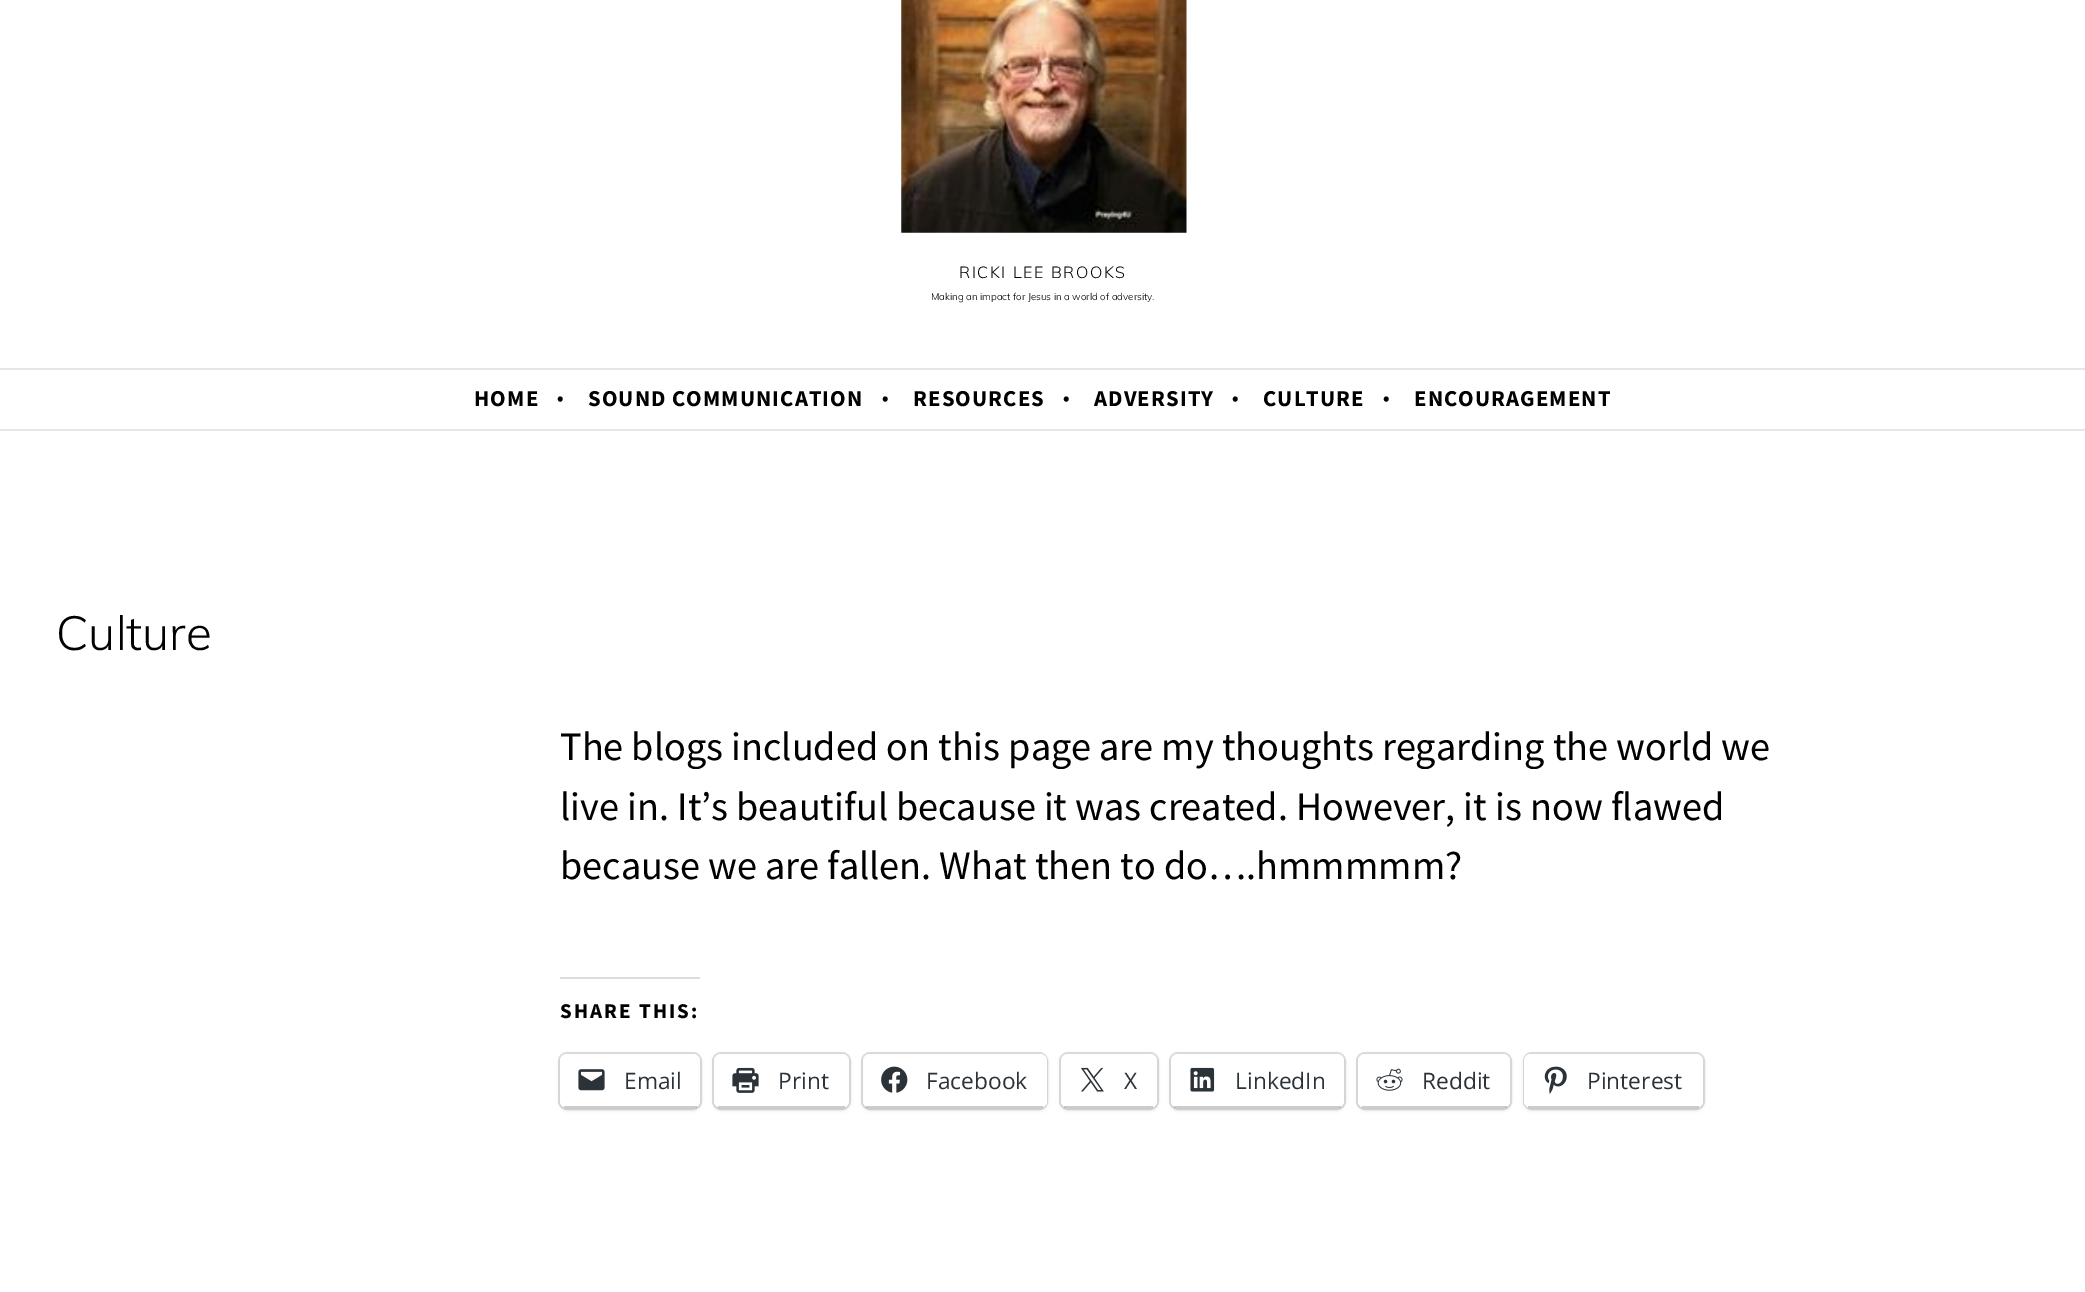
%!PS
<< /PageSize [2085 1292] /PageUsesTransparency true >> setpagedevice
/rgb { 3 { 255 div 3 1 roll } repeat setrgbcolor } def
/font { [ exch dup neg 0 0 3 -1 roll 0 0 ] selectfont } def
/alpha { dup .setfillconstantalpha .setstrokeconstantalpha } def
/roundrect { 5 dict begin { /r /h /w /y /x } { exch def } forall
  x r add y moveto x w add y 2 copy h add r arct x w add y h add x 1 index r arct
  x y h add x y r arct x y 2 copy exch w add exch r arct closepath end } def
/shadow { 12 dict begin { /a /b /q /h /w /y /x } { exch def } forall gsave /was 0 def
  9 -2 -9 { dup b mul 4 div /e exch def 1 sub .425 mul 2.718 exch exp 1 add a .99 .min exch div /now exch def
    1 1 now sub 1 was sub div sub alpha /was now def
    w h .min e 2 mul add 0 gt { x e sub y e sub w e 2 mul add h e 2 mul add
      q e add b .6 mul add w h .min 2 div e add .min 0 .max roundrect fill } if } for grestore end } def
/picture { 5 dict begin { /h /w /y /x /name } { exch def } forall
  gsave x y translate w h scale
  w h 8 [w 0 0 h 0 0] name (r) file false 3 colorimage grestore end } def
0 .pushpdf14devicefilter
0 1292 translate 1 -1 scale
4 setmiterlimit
255 255 255 rgb
0 0 2085 1292 rectfill
230 230 230 rgb
0 429 2085 2 rectfill
(img/1.rgb) 901 0 286 233 picture
0 368 2085 2 rectfill
220 220 222 rgb
560 977 140 2 rectfill
224 224 224 rgb
2 setlinewidth
559 1053 142 56 8 roundrect stroke
0 0 0 rgb
560 1055 140 55 7 2 0.12 shadow
255 255 255 rgb
560 1054 140 54 7 roundrect fill
0.2 alpha
0 0 0 rgb
564 1106 133 2 rectfill
1 alpha
(img/2.rgb) 578 1069 27 22 picture
224 224 224 rgb
713 1053 137 56 8 roundrect stroke
0 0 0 rgb
714 1055 135 55 7 2 0.12 shadow
255 255 255 rgb
714 1054 135 54 7 roundrect fill
0.2 alpha
0 0 0 rgb
718 1106 127 2 rectfill
1 alpha
(img/3.rgb) 732 1067 27 26 picture
224 224 224 rgb
862 1053 185 56 8 roundrect stroke
0 0 0 rgb
863 1055 184 55 7 2 0.12 shadow
255 255 255 rgb
863 1054 184 54 7 roundrect fill
0.2 alpha
0 0 0 rgb
866 1106 177 2 rectfill
1 alpha
(img/4.rgb) 881 1066 27 27 picture
224 224 224 rgb
1060 1053 98 56 8 roundrect stroke
0 0 0 rgb
1061 1055 96 55 7 2 0.12 shadow
255 255 255 rgb
1061 1054 96 54 7 roundrect fill
0.2 alpha
0 0 0 rgb
1064 1106 89 2 rectfill
1 alpha
(img/5.rgb) 1081 1067 23 25 picture
224 224 224 rgb
1170 1053 175 56 8 roundrect stroke
0 0 0 rgb
1171 1055 173 55 7 2 0.12 shadow
255 255 255 rgb
1171 1054 173 54 7 roundrect fill
0.2 alpha
0 0 0 rgb
1174 1106 167 2 rectfill
1 alpha
(img/6.rgb) 1190 1067 25 25 picture
224 224 224 rgb
1357 1053 154 56 8 roundrect stroke
0 0 0 rgb
1358 1055 152 55 7 2 0.12 shadow
255 255 255 rgb
1358 1054 152 54 7 roundrect fill
0.2 alpha
0 0 0 rgb
1362 1106 145 2 rectfill
1 alpha
(img/7.rgb) 1376 1068 27 23 picture
224 224 224 rgb
1524 1053 180 56 8 roundrect stroke
0 0 0 rgb
1524 1055 179 55 7 2 0.12 shadow
255 255 255 rgb
1524 1054 179 54 7 roundrect fill
0.2 alpha
0 0 0 rgb
1528 1106 171 2 rectfill
1 alpha
(img/8.rgb) 1544 1066 23 28 picture
/Muli-Light 16.1 font
959 278 moveto 1.6 0 (RICKI LEE BROOKS) ashow
/Muli-Light 9.8 font
931 300 moveto (Making an impact for Jesus in a world of adversity.) show
/SourceSansPro-Bold 22.75 font
474 406 moveto 1.1 0 (HOME) ashow
/SourceSansPro-Bold 19 font
557 404 moveto 1.1 0 (•) ashow
/SourceSansPro-Bold 22.75 font
588 406 moveto 1.1 0 (SOUND COMMUNICATION) ashow
/SourceSansPro-Bold 19 font
882 404 moveto 1.1 0 (•) ashow
/SourceSansPro-Bold 22.75 font
913 406 moveto 1.1 0 (RESOURCES) ashow
/SourceSansPro-Bold 19 font
1063 404 moveto 1.1 0 (•) ashow
/SourceSansPro-Bold 22.75 font
1094 406 moveto 1.1 0 (ADVERSITY) ashow
/SourceSansPro-Bold 19 font
1232 404 moveto 1.1 0 (•) ashow
/SourceSansPro-Bold 22.75 font
1263 406 moveto 1.1 0 (CULTURE) ashow
/SourceSansPro-Bold 19 font
1383 404 moveto 1.1 0 (•) ashow
/SourceSansPro-Bold 22.75 font
1414 406 moveto 1.1 0 (ENCOURAGEMENT) ashow
/Muli-Light 47.5 font
56 650 moveto (Culture) show
/SourceSansPro-Regular 40.25 font
[
  [(The blogs included on this page are my thoughts regarding the world we) 560 760]
  [(live in. It’s beautiful because it was created. However, it is now flawed) 560 820]
  [(because we are fallen. What then to do….hmmmmm?) 560 879]
] { aload pop moveto show } forall
/SourceSansPro-Bold 21 font
560 1018 moveto 2.1 0 (SHARE THIS:) ashow
/OpenSans-Regular 22.75 font
44 51 56 rgb
[
  [(Email) 624 1089]
  [(Print) 778 1089]
  [(Facebook) 926 1089]
  [(X) 1124 1089]
  [(LinkedIn) 1235 1089]
  [(Reddit) 1422 1089]
  [(Pinterest) 1587 1089]
] { aload pop moveto show } forall
.poppdf14devicefilter showpage
